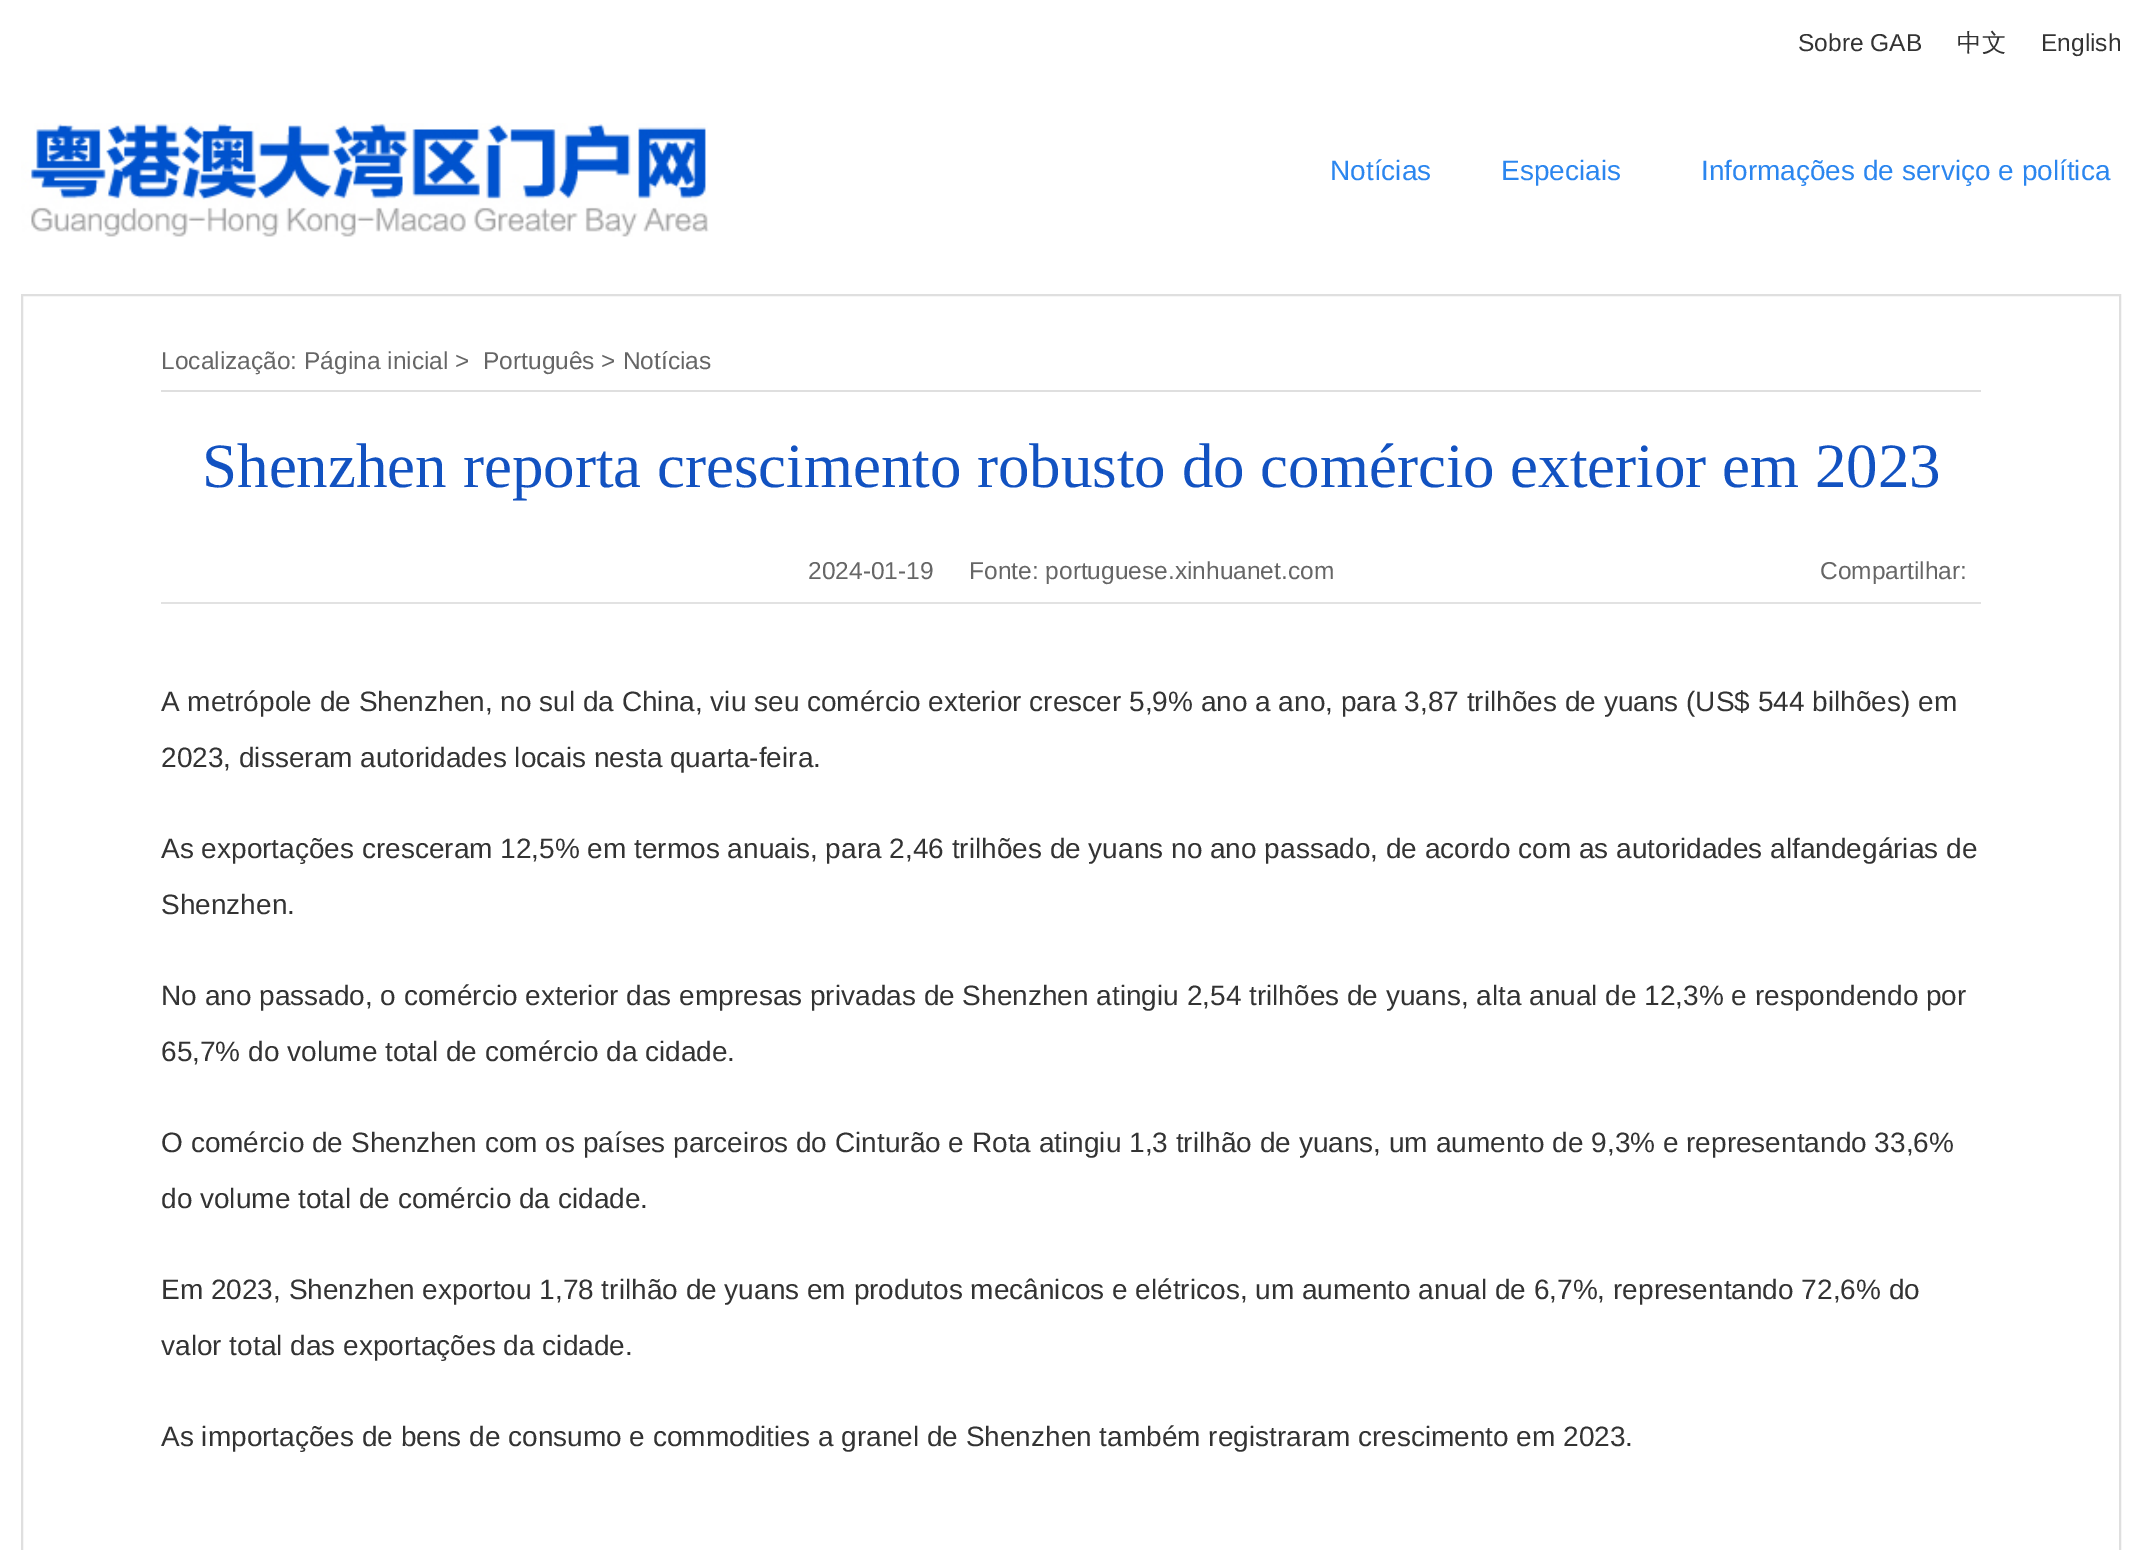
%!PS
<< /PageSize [2142 1550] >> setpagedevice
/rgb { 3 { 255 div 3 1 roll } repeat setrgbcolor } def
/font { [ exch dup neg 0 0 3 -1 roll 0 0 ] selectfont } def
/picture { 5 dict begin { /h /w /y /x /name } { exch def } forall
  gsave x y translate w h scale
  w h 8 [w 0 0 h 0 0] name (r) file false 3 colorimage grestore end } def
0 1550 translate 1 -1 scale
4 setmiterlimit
255 255 255 rgb
0 0 2142 1550 rectfill
(img/1.rgb) 21 123 688 114 picture
223 223 223 rgb
2 setlinewidth
22 295 2098 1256 rectstroke
161 390 1820 2 rectfill
226 226 226 rgb
161 602 1820 2 rectfill
/LiberationSans-Regular 24.5 font
51 51 51 rgb
1798 51 moveto (Sobre GAB) show
/WenQuanYiZenHei-Medium 24.5 font
1957 51 moveto (中文) show
/LiberationSans-Regular 24.5 font
2041 51 moveto (English) show
/LiberationSans-Regular 28 font
43 134 239 rgb
[
  [(Notícias) 1330 180]
  [(Especiais) 1501 180]
  [(Informações de serviço e política) 1701 180]
] { aload pop moveto show } forall
/LiberationSans-Regular 24.5 font
102 102 102 rgb
161 369 moveto (Localização: Página inicial >) show
483 369 moveto (Português > Notícias) show
/LiberationSerif-Regular 63 font
18 82 193 rgb
202 487 moveto (Shenzhen reporta crescimento robusto do comércio exterior em 2023) show
/LiberationSans-Regular 24.5 font
102 102 102 rgb
[
  [(2024-01-19) 808 579]
  [(Fonte: portuguese.xinhuanet.com) 969 579]
  [(Compartilhar:) 1820 579]
] { aload pop moveto show } forall
/LiberationSans-Regular 28 font
51 51 51 rgb
[
  [(A metrópole de Shenzhen, no sul da China, viu seu comércio exterior crescer 5,9% ano a ano, para 3,87 trilhões de yuans \(US$ 544 bilhões\) em) 161 711]
  [(2023, disseram autoridades locais nesta quarta-feira.) 161 767]
  [(As exportações cresceram 12,5% em termos anuais, para 2,46 trilhões de yuans no ano passado, de acordo com as autoridades alfandegárias de) 161 858]
  [(Shenzhen.) 161 914]
  [(No ano passado, o comércio exterior das empresas privadas de Shenzhen atingiu 2,54 trilhões de yuans, alta anual de 12,3% e respondendo por) 161 1005]
  [(65,7% do volume total de comércio da cidade.) 161 1061]
  [(O comércio de Shenzhen com os países parceiros do Cinturão e Rota atingiu 1,3 trilhão de yuans, um aumento de 9,3% e representando 33,6%) 161 1152]
  [(do volume total de comércio da cidade.) 161 1208]
  [(Em 2023, Shenzhen exportou 1,78 trilhão de yuans em produtos mecânicos e elétricos, um aumento anual de 6,7%, representando 72,6% do) 161 1299]
  [(valor total das exportações da cidade.) 161 1355]
  [(As importações de bens de consumo e commodities a granel de Shenzhen também registraram crescimento em 2023.) 161 1446]
] { aload pop moveto show } forall
showpage
